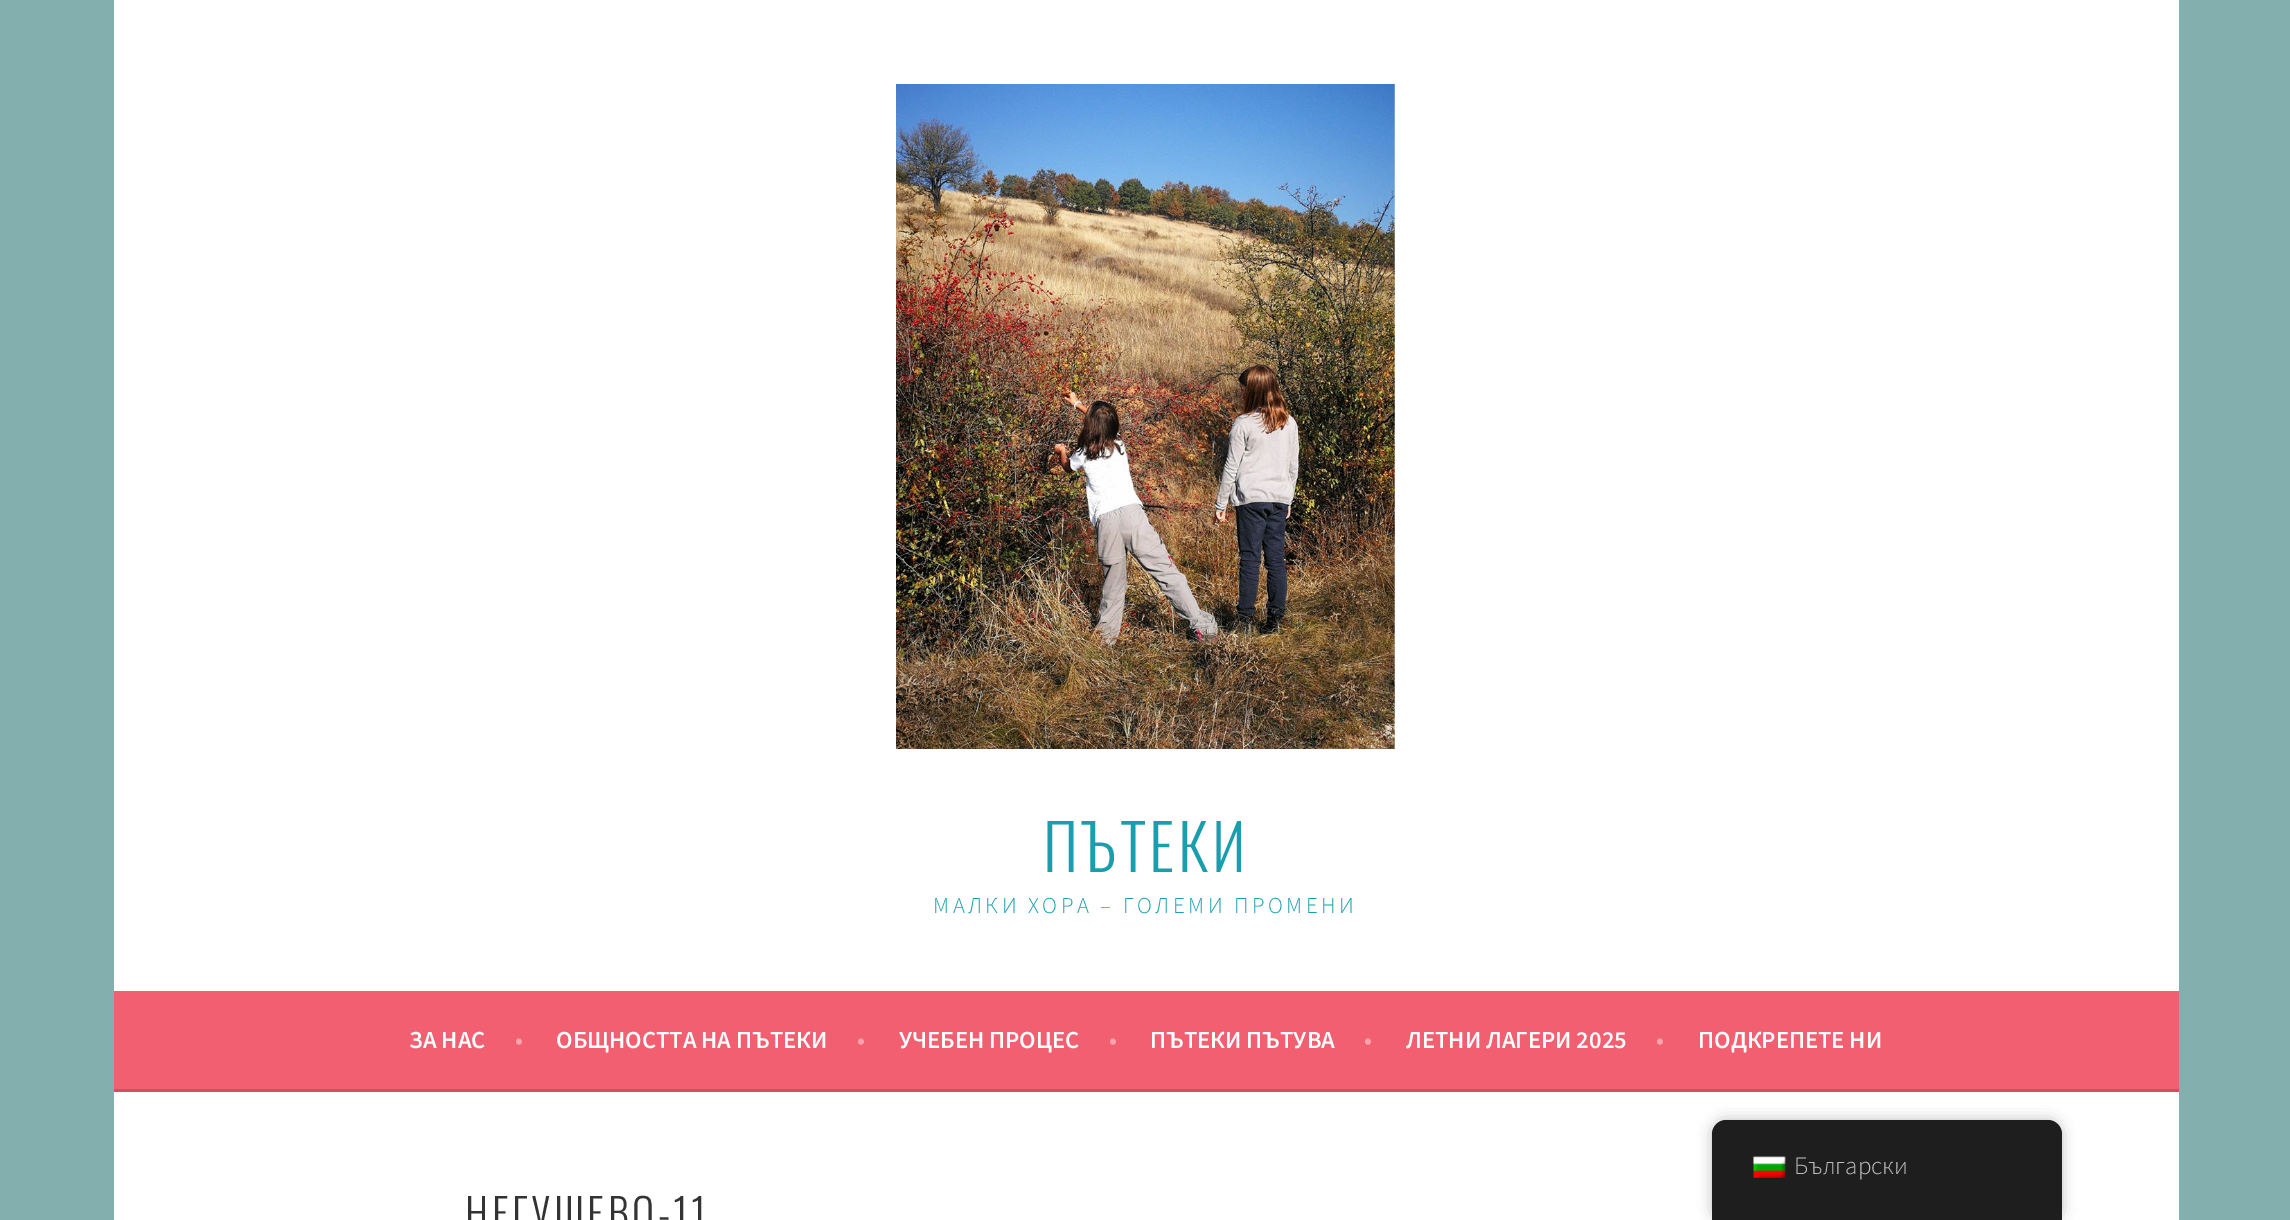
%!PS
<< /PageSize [2290 1220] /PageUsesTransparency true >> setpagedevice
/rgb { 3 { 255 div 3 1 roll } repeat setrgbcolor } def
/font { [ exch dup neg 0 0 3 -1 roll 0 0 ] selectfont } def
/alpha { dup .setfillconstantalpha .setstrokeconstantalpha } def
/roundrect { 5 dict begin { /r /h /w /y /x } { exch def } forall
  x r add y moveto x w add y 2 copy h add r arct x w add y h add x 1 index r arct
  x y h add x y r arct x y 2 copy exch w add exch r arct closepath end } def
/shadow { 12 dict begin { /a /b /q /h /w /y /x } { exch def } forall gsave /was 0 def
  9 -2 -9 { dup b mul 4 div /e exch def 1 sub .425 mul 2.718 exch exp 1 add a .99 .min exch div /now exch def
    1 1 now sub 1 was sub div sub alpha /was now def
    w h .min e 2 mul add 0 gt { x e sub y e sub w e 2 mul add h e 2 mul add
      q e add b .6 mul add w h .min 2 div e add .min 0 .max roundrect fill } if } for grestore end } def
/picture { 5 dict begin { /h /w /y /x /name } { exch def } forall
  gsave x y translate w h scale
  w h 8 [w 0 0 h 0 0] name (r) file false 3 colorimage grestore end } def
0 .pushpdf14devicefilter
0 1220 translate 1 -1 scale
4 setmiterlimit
131 175 175 rgb
0 0 2290 1220 rectfill
255 255 255 rgb
114 0 2065 991 rectfill
(img/1.rgb) 896 84 499 665 picture
[
  [114 991 2065 98 242 95 112]
  [114 1089 2065 3 206 81 95]
  [114 1092 2065 128 255 255 255]
] { aload pop rgb rectfill } forall
0 0 0 rgb
1712 1120 350 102 14 7 0.25 shadow
30 30 30 rgb
1726 1120 moveto 2048 1120 lineto 2055.5 1120 2062 1126.5 2062 1134 curveto 2062 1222 lineto 1712 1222 lineto 1712 1134 lineto 1712 1126.5 1718.5 1120 1726 1120 curveto closepath fill
(img/2.rgb) 1753 1156 33 22 picture
/Oswald-Light 63 font
26 158 173 rgb
1043 872 moveto 3.5 0 (ПЪТЕКИ) ashow
/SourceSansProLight-Light 22.75 font
933 913 moveto 3.5 0 (МАЛКИ ХОРА – ГОЛЕМИ ПРОМЕНИ) ashow
/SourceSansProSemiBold-SemiBold 24.5 font
255 255 255 rgb
409 1048 moveto (ЗА НАС) show
255 164 173 rgb
515 1048 moveto (•) show
255 255 255 rgb
556 1048 moveto (ОБЩНОСТТА НА ПЪТЕКИ) show
255 164 173 rgb
857 1048 moveto (•) show
255 255 255 rgb
899 1048 moveto (УЧЕБЕН ПРОЦЕС) show
255 164 173 rgb
1109 1048 moveto (•) show
255 255 255 rgb
1150 1048 moveto (ПЪТЕКИ ПЪТУВА) show
255 164 173 rgb
1364 1048 moveto (•) show
255 255 255 rgb
1406 1048 moveto (ЛЕТНИ ЛАГЕРИ 2025) show
255 164 173 rgb
1656 1048 moveto (•) show
255 255 255 rgb
1698 1048 moveto (ПОДКРЕПЕТЕ НИ) show
/Oswald-Light 42 font
51 51 51 rgb
465 1230 moveto 3.5 0 (НЕГУШЕВО-11) ashow
/SourceSansProLight-Light 25 font
189 189 189 rgb
1794 1174 moveto (Български) show
.poppdf14devicefilter showpage
